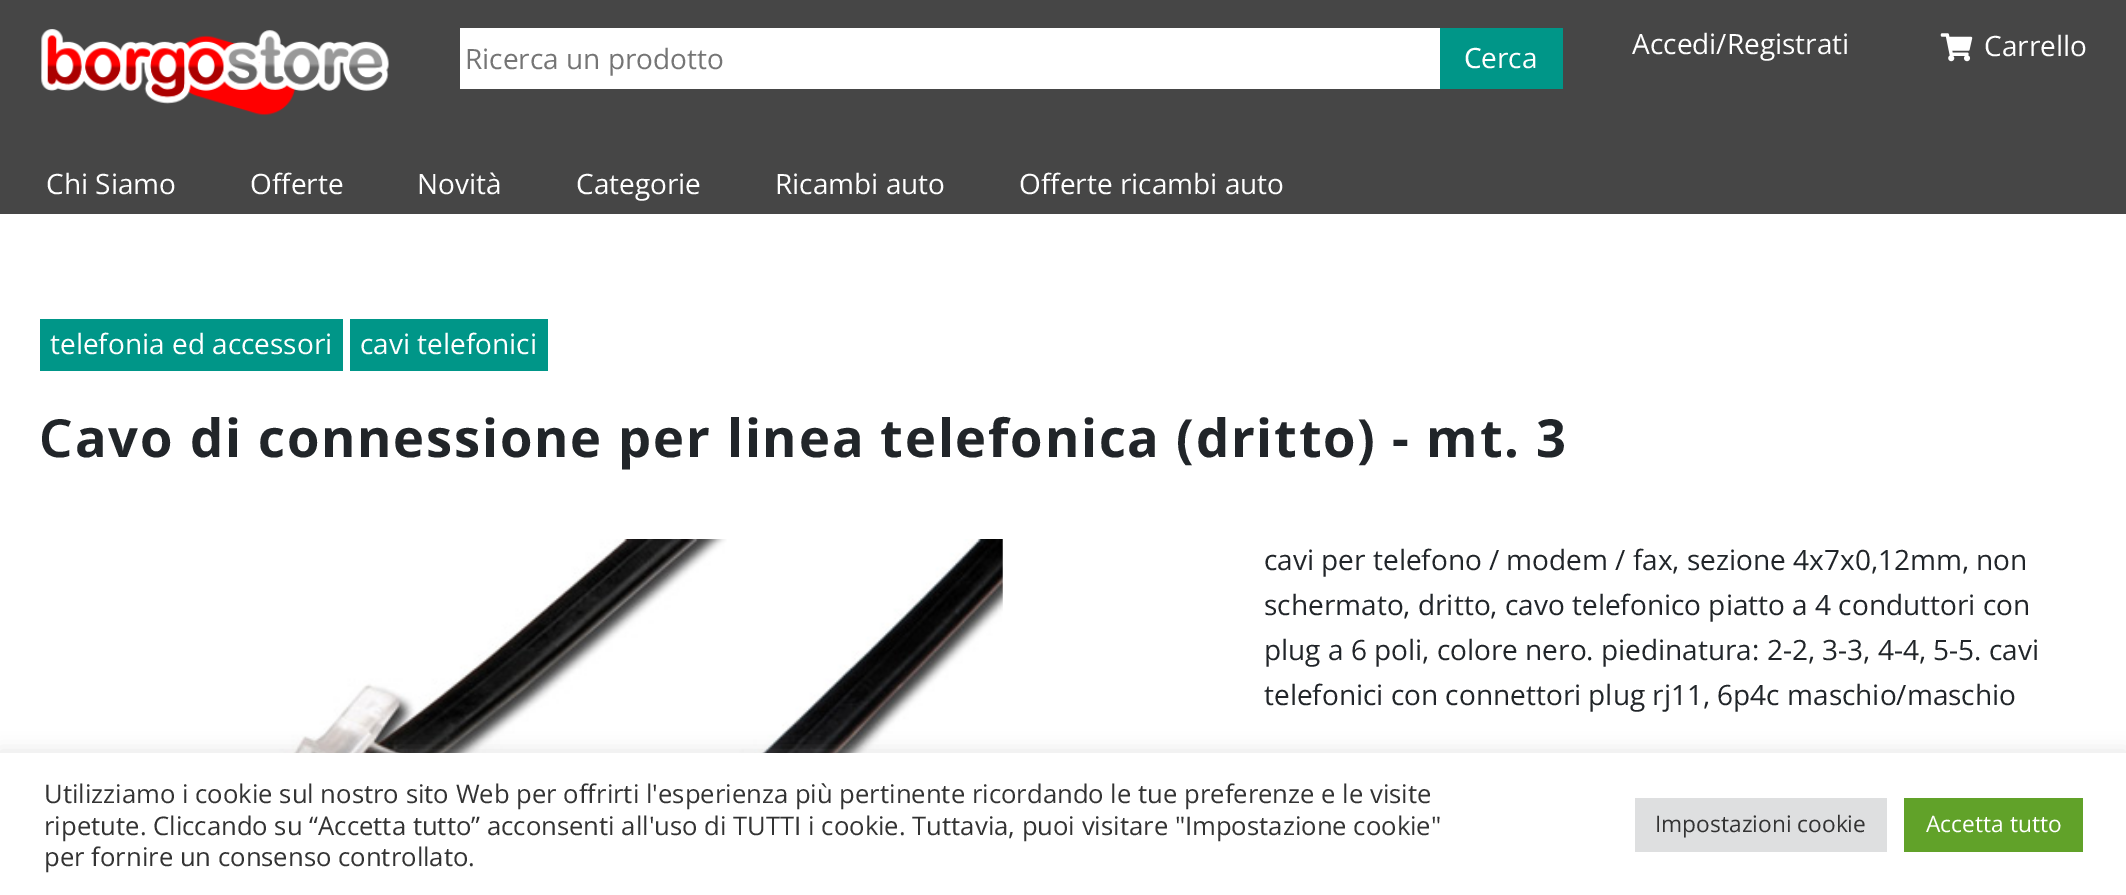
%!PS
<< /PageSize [2126 895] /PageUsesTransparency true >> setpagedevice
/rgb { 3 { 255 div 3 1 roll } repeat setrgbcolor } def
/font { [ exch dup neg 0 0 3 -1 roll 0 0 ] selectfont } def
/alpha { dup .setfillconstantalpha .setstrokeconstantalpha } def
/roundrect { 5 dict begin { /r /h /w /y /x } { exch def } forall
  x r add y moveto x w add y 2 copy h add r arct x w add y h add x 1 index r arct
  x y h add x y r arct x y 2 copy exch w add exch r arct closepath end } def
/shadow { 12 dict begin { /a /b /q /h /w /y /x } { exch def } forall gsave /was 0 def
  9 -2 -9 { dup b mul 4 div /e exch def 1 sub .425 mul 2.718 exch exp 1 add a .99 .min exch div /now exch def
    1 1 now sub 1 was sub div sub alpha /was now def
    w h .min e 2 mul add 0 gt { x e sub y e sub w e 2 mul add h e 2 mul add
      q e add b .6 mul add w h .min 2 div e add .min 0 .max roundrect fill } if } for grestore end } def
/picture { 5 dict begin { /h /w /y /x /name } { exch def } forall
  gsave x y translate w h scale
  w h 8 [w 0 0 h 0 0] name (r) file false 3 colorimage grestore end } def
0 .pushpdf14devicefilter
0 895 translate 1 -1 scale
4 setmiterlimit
255 255 255 rgb
0 0 2126 895 rectfill
70 70 70 rgb
0 0 2126 214 rectfill
(img/1.rgb) 41 29 348 86 picture
255 255 255 rgb
460 28 980 61 rectfill
0 150 136 rgb
1440 28 123 61 rectfill
(img/2.rgb) 1940 33 33 29 picture
40 319 303 52 rectfill
350 319 198 52 rectfill
(img/3.rgb) 241 539 762 214 picture
172 171 171 rgb
0 751 2126 143 0 9 0.3 shadow
[
  [0 753 2126 142 255 255 255]
  [1635 798 252 54 222 223 224]
  [1904 798 179 54 97 162 41]
] { aload pop rgb rectfill } forall
/OpenSans-Regular 28 font
117 117 117 rgb
465 69 moveto (Ricerca un prodotto) show
/NotoSans-Regular 28 font
255 255 255 rgb
1464 68 moveto (C) show
/OpenSans-Regular 28 font
[
  [(erca) 1481 68]
  [(Accedi/Registrati) 1632 54]
  [(Carrello) 1984 56]
  [(Chi Siamo) 46 194]
  [(Offerte) 250 194]
  [(Novità) 417 194]
  [(Categorie) 576 194]
  [(Ricambi auto) 775 194]
  [(Offerte ricambi auto) 1019 194]
  [(telefonia ed accessori) 50 354]
  [(cavi telefonici) 360 354]
] { aload pop moveto show } forall
/NotoSans-SemiBold 52.5 font
33 37 41 rgb
39 457 moveto 1.75 0 (C) ashow
/OpenSans-Bold 52.5 font
75 457 moveto 1.75 0 (avo di connessione per linea telefonica \(dritto\) - mt. 3) ashow
/OpenSans-Regular 28 font
[
  [(cavi per telefono / modem / fax, sezione 4x7x0,12mm, non) 1264 570]
  [(schermato, dritto, cavo telefonico piatto a 4 conduttori con) 1264 615]
  [(plug a 6 poli, colore nero. piedinatura: 2-2, 3-3, 4-4, 5-5. cavi) 1264 660]
  [(telefonici con connettori plug rj11, 6p4c maschio/maschio) 1264 705]
] { aload pop moveto show } forall
/OpenSans-Regular 25.67 font
51 51 51 rgb
[
  [(Utilizziamo i cookie sul nostro sito Web per offrirti l'esperienza più pertinente ricordando le tue preferenze e le visite) 44 803]
  [(ripetute. Cliccando su “Accetta tutto” acconsenti all'uso di TUTTI i cookie. Tuttavia, puoi visitare "Impostazione cookie") 44 835]
  [(per fornire un consenso controllato.) 44 866]
] { aload pop moveto show } forall
/OpenSans-Regular 22.75 font
1655 832 moveto (Impostazioni cookie) show
255 255 255 rgb
1926 832 moveto (Accetta tutto) show
.poppdf14devicefilter showpage
